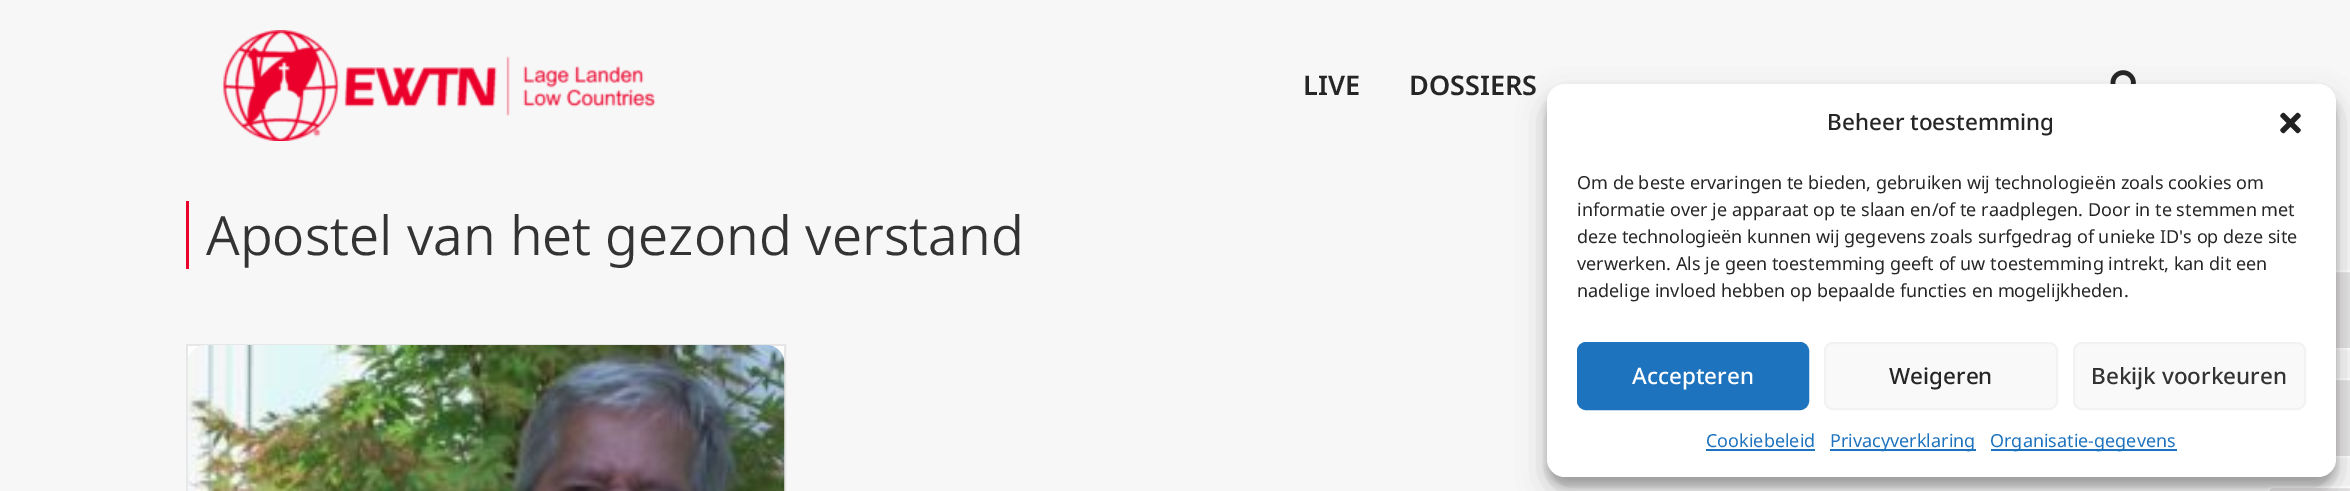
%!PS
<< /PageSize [2350 491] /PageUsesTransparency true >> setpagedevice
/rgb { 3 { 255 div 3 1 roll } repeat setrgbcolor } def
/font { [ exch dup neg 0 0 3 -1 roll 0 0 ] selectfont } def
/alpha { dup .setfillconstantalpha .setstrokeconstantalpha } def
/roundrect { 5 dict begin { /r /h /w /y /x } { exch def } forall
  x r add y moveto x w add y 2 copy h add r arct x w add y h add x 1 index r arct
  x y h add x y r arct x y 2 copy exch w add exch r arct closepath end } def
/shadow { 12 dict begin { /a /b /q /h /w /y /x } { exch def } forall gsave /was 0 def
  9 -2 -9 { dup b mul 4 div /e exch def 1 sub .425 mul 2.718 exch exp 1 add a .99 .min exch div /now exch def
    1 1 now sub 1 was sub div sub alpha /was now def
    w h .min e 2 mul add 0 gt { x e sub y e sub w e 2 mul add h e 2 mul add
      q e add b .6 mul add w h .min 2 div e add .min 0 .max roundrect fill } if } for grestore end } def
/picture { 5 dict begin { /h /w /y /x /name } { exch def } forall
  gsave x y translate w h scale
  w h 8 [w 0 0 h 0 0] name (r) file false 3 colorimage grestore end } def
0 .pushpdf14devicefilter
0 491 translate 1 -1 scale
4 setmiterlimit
248 247 247 rgb
0 0 2350 491 rectfill
(img/1.rgb) 222 30 434 111 picture
(img/2.rgb) 2110 70 26 14 picture
234 0 42 rgb
186 201 3 68 rectfill
255 255 255 rgb
188 346 596 13 rectfill
230 230 230 rgb
2 setlinewidth
187 345 598 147 rectstroke
(img/3.rgb) 187 345 598 146 picture
228 226 227 rgb
2336 272 14 76 rectfill
255 255 255 rgb
2268 271 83 78 rectstroke
228 226 227 rgb
2336 380 14 76 rectfill
255 255 255 rgb
2268 379 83 78 rectstroke
228 226 227 rgb
2273 487 moveto 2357 487 lineto 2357 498 lineto 2273 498 lineto 2270 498 2268 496 2268 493 curveto 2268 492 lineto 2268 489 2270 487 2273 487 curveto closepath gsave fill grestore
255 255 255 rgb
stroke
0 0 0 rgb
1547 93 789 393 18 4.5 0.23 shadow
1547 99 789 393 18 15 0.19 shadow
255 255 255 rgb
1547 84 789 393 18 roundrect fill
(img/4.rgb) 2280 112 21 22 picture
30 115 190 rgb
1578 343 230 66 8 roundrect gsave fill grestore
stroke
249 249 249 rgb
1825 343 232 66 8 roundrect gsave fill grestore
242 242 242 rgb
stroke
249 249 249 rgb
2074 343 231 66 8 roundrect gsave fill grestore
242 242 242 rgb
stroke
[
  [1706 449 109 2 30 115 190]
  [1830 449 146 2 30 115 190]
  [1991 449 186 2 30 115 190]
] { aload pop rgb rectfill } forall
/NotoSans-SemiBold 27 font
38 38 38 rgb
1303 95 moveto (LIVE) show
1409 95 moveto (DOSSIERS) show
/NotoSans-Light 54 font
51 51 51 rgb
206 255 moveto (Apostel van het gezond verstand) show
/NotoSans-Medium 22.5 font
38 38 38 rgb
1827 130 moveto (Beheer toestemming) show
/NotoSans-Regular 18 font
[
  [(Om de beste ervaringen te bieden, gebruiken wij technologieën zoals cookies om) 1577 189]
  [(informatie over je apparaat op te slaan en/of te raadplegen. Door in te stemmen met) 1577 216]
  [(deze technologieën kunnen wij gegevens zoals surfgedrag of unieke ID's op deze site) 1577 243]
  [(verwerken. Als je geen toestemming geeft of uw toestemming intrekt, kan dit een) 1577 270]
  [(nadelige invloed hebben op bepaalde functies en mogelijkheden.) 1577 297]
] { aload pop moveto show } forall
/NotoSans-Medium 22.5 font
255 255 255 rgb
1632 384 moveto (Accepteren) show
38 38 38 rgb
1889 384 moveto (Weigeren) show
51 51 51 rgb
2091 384 moveto (Bekijk voorkeuren) show
/NotoSans-Regular 18 font
30 115 190 rgb
[
  [(Cookiebeleid) 1706 447]
  [(Privacyverklaring) 1830 447]
  [(Organisatie-gegevens) 1990 447]
] { aload pop moveto show } forall
.poppdf14devicefilter showpage
